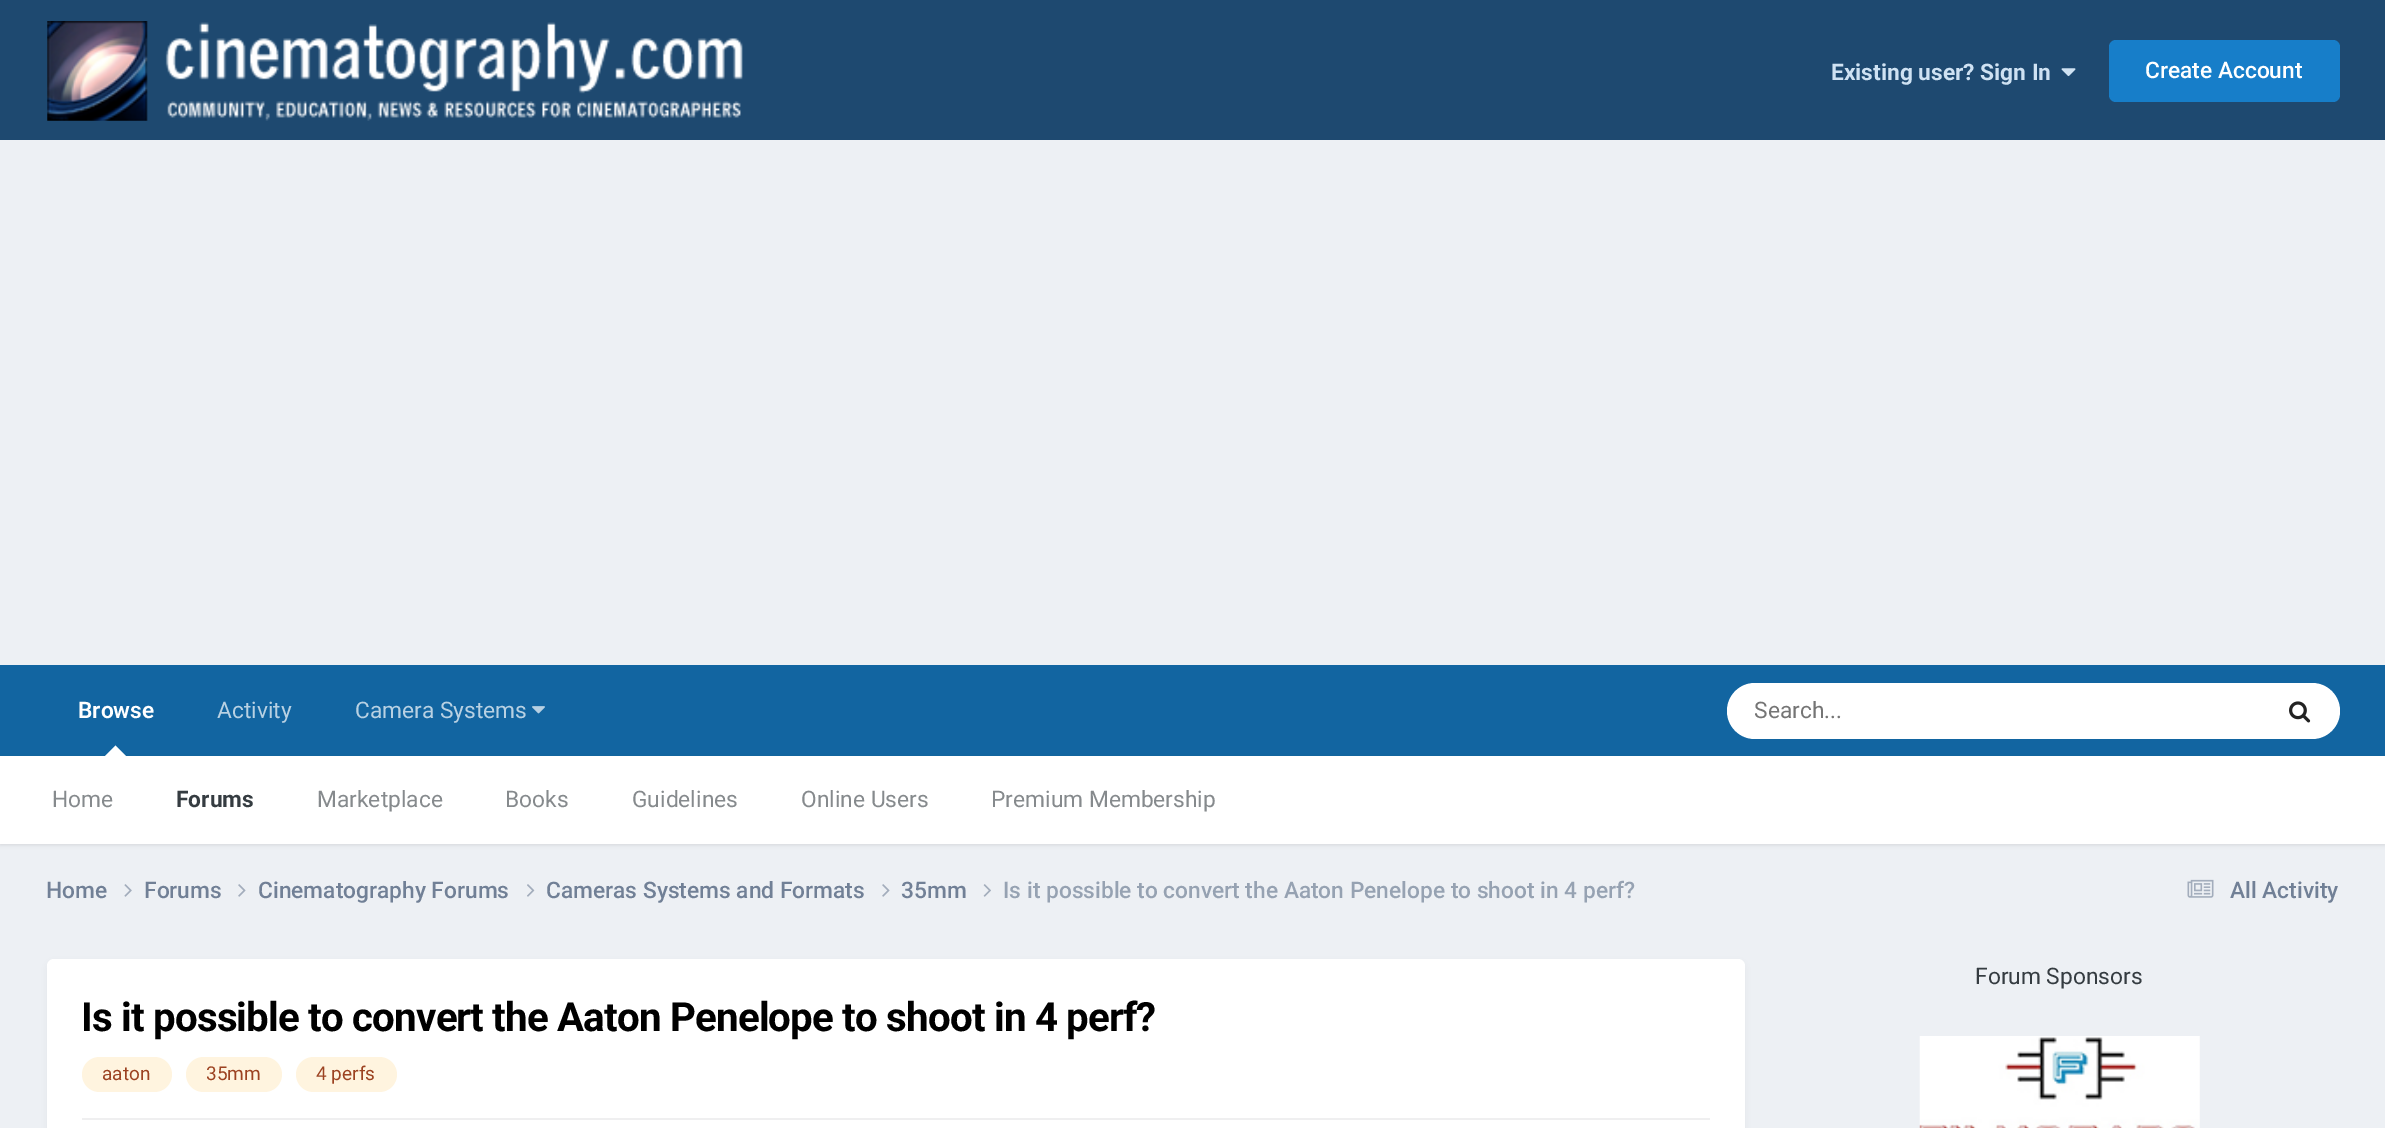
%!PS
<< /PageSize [2385 1128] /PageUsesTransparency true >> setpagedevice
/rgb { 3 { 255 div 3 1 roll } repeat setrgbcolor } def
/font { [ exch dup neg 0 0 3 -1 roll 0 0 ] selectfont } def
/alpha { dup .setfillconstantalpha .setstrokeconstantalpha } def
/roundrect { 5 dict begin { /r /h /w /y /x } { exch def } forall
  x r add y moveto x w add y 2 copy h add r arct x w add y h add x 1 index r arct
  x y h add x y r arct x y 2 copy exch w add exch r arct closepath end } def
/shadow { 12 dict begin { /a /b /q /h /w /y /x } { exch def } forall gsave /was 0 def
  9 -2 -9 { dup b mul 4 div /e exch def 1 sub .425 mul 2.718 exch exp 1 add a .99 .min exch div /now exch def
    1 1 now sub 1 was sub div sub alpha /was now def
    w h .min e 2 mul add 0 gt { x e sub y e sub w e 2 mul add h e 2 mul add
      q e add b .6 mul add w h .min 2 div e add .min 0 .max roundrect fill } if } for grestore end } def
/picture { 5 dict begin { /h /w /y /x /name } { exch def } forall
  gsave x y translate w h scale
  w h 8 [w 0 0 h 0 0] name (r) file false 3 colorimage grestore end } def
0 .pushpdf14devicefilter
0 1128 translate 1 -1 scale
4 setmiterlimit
237 240 244 rgb
0 0 2385 1128 rectfill
30 73 112 rgb
0 0 2385 140 rectfill
(img/1.rgb) 47 21 696 100 picture
(img/2.rgb) 2061 68 15 9 picture
23 126 201 rgb
2109 40 231 62 7 roundrect fill
18 101 161 rgb
0 665 2385 91 rectfill
0 0 0 rgb
0 758 2385 87 0 2 0.1 shadow
255 255 255 rgb
126 756 moveto 105 756 lineto 115.5 745.5 lineto closepath fill
(img/3.rgb) 532 706 13 8 picture
1727 683 613 56 28 roundrect fill
(img/4.rgb) 2289 701 22 22 picture
0 756 2385 88 rectfill
(img/5.rgb) 124 884 8 13 picture
(img/6.rgb) 238 884 8 13 picture
(img/7.rgb) 527 884 8 13 picture
(img/6.rgb) 882 884 8 13 picture
(img/8.rgb) 983 884 8 13 picture
(img/9.rgb) 2187 879 27 19 picture
(img/10.rgb) 1919 1036 281 92 picture
45 55 72 rgb
49 964 1694 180 5 3.5 0.1 shadow
255 255 255 rgb
47 959 1698 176 7 roundrect fill
255 244 223 rgb
82 1057 90 35 17.5 roundrect fill
186 1057 96 35 17.5 roundrect fill
296 1057 101 35 17.5 roundrect fill
239 239 240 rgb
82 1118 1628 2 rectfill
/Roboto-Bold 22.75 font
207 226 243 rgb
1831 80 moveto (Existing user? Sign In) show
/Roboto-Medium 22.75 font
255 255 255 rgb
2145 78 moveto (Create Account) show
/Roboto-SemiBold 22.75 font
78 718 moveto (Browse) show
/Roboto-Regular 22.75 font
134 138 141 rgb
52 807 moveto (Home) show
/Roboto-Bold 22.75 font
53 60 65 rgb
176 807 moveto (Forums) show
/Roboto-Regular 22.75 font
134 138 141 rgb
[
  [(Marketplace) 317 807]
  [(Books) 505 807]
  [(Guidelines) 632 807]
  [(Online Users) 801 807]
  [(Premium Membership) 991 807]
] { aload pop moveto show } forall
184 209 227 rgb
217 718 moveto (Activity) show
355 718 moveto (Camera Systems) show
117 117 117 rgb
1754 718 moveto (Search...) show
/Roboto-Medium 22.75 font
113 128 150 rgb
[
  [(Home) 46 898]
  [(Forums) 144 898]
  [(Cinematography Forums) 258 898]
  [(Cameras Systems and Formats) 546 898]
  [(35mm) 901 898]
] { aload pop moveto show } forall
150 162 178 rgb
1003 898 moveto (Is it possible to convert the Aaton Penelope to shoot in 4 perf?) show
113 128 150 rgb
2230 898 moveto (All Activity) show
/Roboto-Regular 22.75 font
53 60 65 rgb
1975 984 moveto (Forum Sponsors) show
/Roboto-Bold 40.25 font
0 0 0 rgb
81 1031 moveto -0.8 0 (Is it possible to convert the Aaton Penelope to shoot in 4 perf?) ashow
/Roboto-Regular 19 font
156 66 33 rgb
[
  [(aaton) 102 1080]
  [(35mm) 206 1080]
  [(4 perfs) 316 1080]
] { aload pop moveto show } forall
.poppdf14devicefilter showpage
